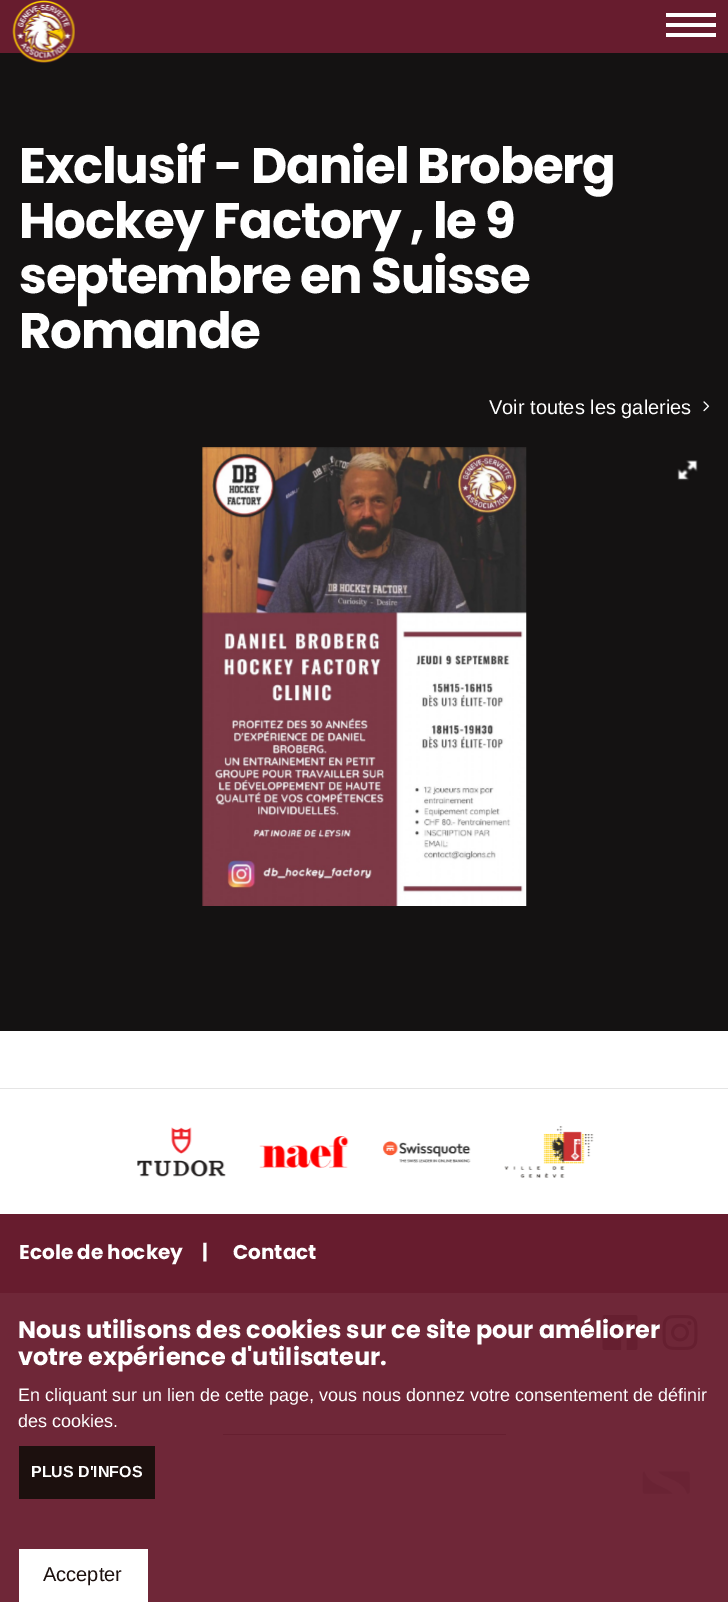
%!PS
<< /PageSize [728 1602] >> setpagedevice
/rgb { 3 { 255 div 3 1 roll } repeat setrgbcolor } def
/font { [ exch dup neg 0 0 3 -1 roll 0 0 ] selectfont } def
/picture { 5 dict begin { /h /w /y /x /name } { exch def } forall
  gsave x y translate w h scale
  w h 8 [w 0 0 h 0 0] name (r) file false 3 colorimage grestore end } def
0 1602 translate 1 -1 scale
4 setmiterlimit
255 255 255 rgb
0 0 728 1602 rectfill
[
  [0 1293 728 309 111 39 56]
  [0 0 728 53 103 28 46]
  [0 53 728 978 20 18 18]
] { aload pop rgb rectfill } forall
(img/1.rgb) 12 0 63 63 picture
[
  [666 23 50 4 255 255 255]
  [666 13 50 4 255 255 255]
  [666 33 50 4 255 255 255]
] { aload pop rgb rectfill } forall
(img/2.rgb) 703 401 7 11 picture
(img/3.rgb) 202 447 325 459 picture
(img/4.rgb) 677 460 21 21 picture
229 229 229 rgb
0 1088 728 1 rectfill
(img/5.rgb) 137 1127 89 50 picture
(img/6.rgb) 259 1136 90 32 picture
(img/7.rgb) 382 1141 89 22 picture
(img/8.rgb) 504 1126 90 52 picture
103 28 46 rgb
0 1214 728 79 rectfill
(img/9.rgb) 602 1315 36 35 picture
(img/10.rgb) 662 1315 36 35 picture
102 31 48 rgb
223 1434 283 1 rectfill
(img/11.rgb) 642 1471 48 23 picture
28 16 14 rgb
19 1446 136 53 rectfill
255 255 255 rgb
19 1549 129 53 rectfill
/Poppins-Bold 50 font
19 183 moveto -1.25 0 (Exclusif - Daniel Broberg) ashow
19 238 moveto -1.25 0 (Hockey Factory , le 9) ashow
19 293 moveto -1.25 0 (septembre en Suisse) ashow
19 348 moveto -1.25 0 (Romande) ashow
/LiberationSans-Regular 20 font
489 414 moveto (Voir toutes les galeries) show
/Poppins-Bold 20 font
[
  [(Ecole de hockey) 19 1259]
  [(|) 202 1259]
  [(Contact) 233 1259]
] { aload pop moveto show } forall
/Poppins-Bold 24 font
18 1338 moveto (Nous utilisons des cookies sur ce site pour améliorer) show
18 1365 moveto (votre expérience d'utilisateur.) show
/LiberationSans-Regular 18 font
18 1401 moveto (En cliquant sur un lien de cette page, vous nous donnez votre consentement de définir) show
18 1427 moveto (des cookies.) show
/LiberationSans-Bold 16 font
31 1477 moveto (PLUS D'INFOS) show
/LiberationSans-Regular 20 font
28 16 14 rgb
43 1581 moveto (Accepter) show
showpage
